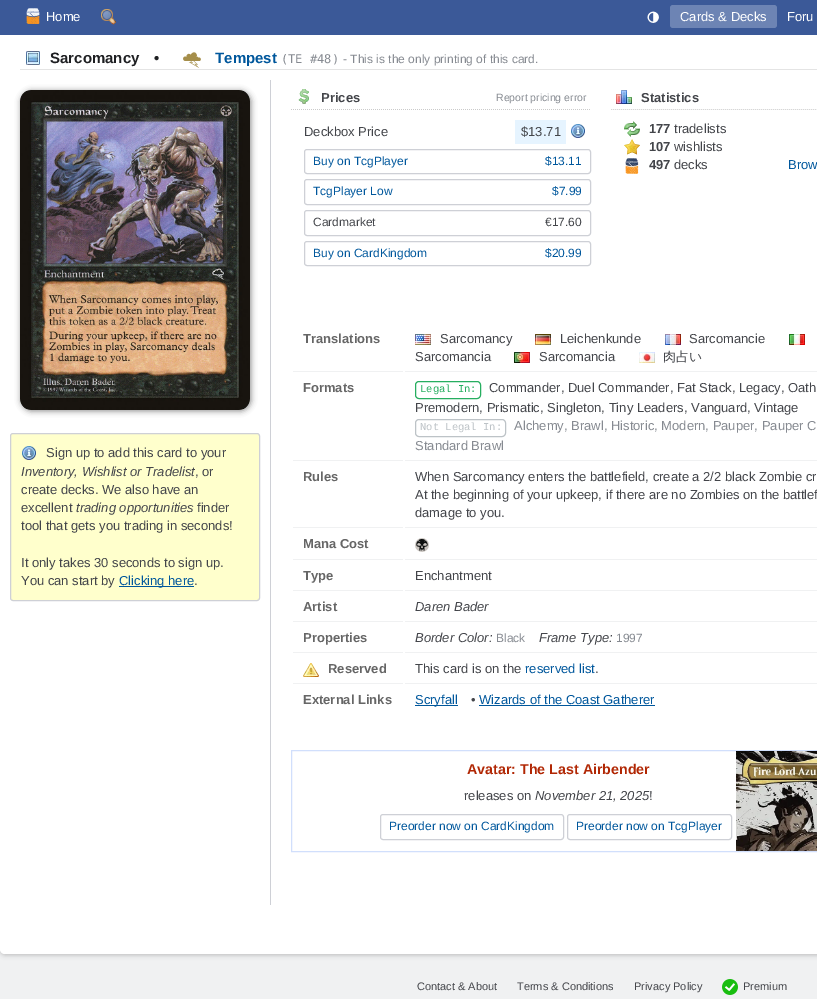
%!PS
<< /PageSize [817 999] /PageUsesTransparency true >> setpagedevice
/rgb { 3 { 255 div 3 1 roll } repeat setrgbcolor } def
/font { [ exch dup neg 0 0 3 -1 roll 0 0 ] selectfont } def
/alpha { dup .setfillconstantalpha .setstrokeconstantalpha } def
/roundrect { 5 dict begin { /r /h /w /y /x } { exch def } forall
  x r add y moveto x w add y 2 copy h add r arct x w add y h add x 1 index r arct
  x y h add x y r arct x y 2 copy exch w add exch r arct closepath end } def
/shadow { 12 dict begin { /a /b /q /h /w /y /x } { exch def } forall gsave /was 0 def
  9 -2 -9 { dup b mul 4 div /e exch def 1 sub .425 mul 2.718 exch exp 1 add a .99 .min exch div /now exch def
    1 1 now sub 1 was sub div sub alpha /was now def
    w h .min e 2 mul add 0 gt { x e sub y e sub w e 2 mul add h e 2 mul add
      q e add b .6 mul add w h .min 2 div e add .min 0 .max roundrect fill } if } for grestore end } def
/picture { 5 dict begin { /h /w /y /x /name } { exch def } forall
  gsave x y translate w h scale
  w h 8 [w 0 0 h 0 0] name (r) file false 3 colorimage grestore end } def
0 .pushpdf14devicefilter
0 999 translate 1 -1 scale
4 setmiterlimit
240 241 242 rgb
0 0 817 999 rectfill
187 187 187 rgb
0 1 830 954 5 2.5 1 shadow
255 255 255 rgb
0 0 moveto 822 0 lineto 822 949 lineto 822 952 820 954 817 954 curveto 5 954 lineto 2 954 0 952 0 949 curveto closepath fill
59 89 152 rgb
0 0 817 35 rectfill
(img/1.rgb) 26 8 14 16 picture
(img/2.rgb) 101 9 16 16 picture
(img/3.rgb) 647 11 12 12 picture
109 132 180 rgb
670 5 107 23 3 roundrect fill
228 228 228 rgb
20 69 797 1 rectfill
(img/4.rgb) 26 51 14 14 picture
(img/5.rgb) 183 52 18 17 picture
206 208 214 rgb
270 80 1 825 rectfill
0 0 0 rgb
21 91 230 320 11 3 0.45 shadow
(img/6.rgb) 20 90 230 320 picture
255 255 204 rgb
10.5 433.5 249 167 2.5 roundrect gsave fill grestore
206 208 214 rgb
stroke
(img/7.rgb) 22 446 14 14 picture
0 87 156 rgb
119 586 75 1 rectfill
(img/8.rgb) 291 109 299 1 picture
(img/9.rgb) 298 89 11 15 picture
230 244 255 rgb
515 120 51 24 rectfill
(img/10.rgb) 571 124 14 14 picture
206 208 214 rgb
304.5 149.5 286 24 2.5 roundrect stroke
304.5 179.5 286 25 2.5 roundrect stroke
304.5 210.5 286 25 2.5 roundrect stroke
304.5 241.5 286 24 2.5 roundrect stroke
(img/11.rgb) 611 109 206 1 picture
(img/12.rgb) 616 90 16 14 picture
(img/13.rgb) 624 121 16 16 picture
(img/14.rgb) 624 139 16 16 picture
(img/15.rgb) 625 158 14 16 picture
240 241 242 rgb
293 371 110 1 rectfill
405 371 412 1 rectfill
(img/16.rgb) 415 334 16 11 picture
(img/17.rgb) 535 334 16 11 picture
(img/18.rgb) 665 334 16 11 picture
(img/19.rgb) 789 334 16 11 picture
(img/20.rgb) 514 352 16 11 picture
(img/21.rgb) 639 352 16 11 picture
293 460 110 1 rectfill
405 460 412 1 rectfill
39 174 96 rgb
415.5 381.5 65 17 3.5 roundrect stroke
189 195 199 rgb
415.5 419.5 90 17 3.5 roundrect stroke
[
  [293 527 110 1 240 241 242]
  [405 527 412 1 240 241 242]
  [293 559 110 1 240 241 242]
  [405 559 412 1 240 241 242]
] { aload pop rgb rectfill } forall
(img/22.rgb) 415 538 14 14 picture
[
  [293 590 110 1 240 241 242]
  [405 590 412 1 240 241 242]
  [293 621 110 1 240 241 242]
  [405 621 412 1 240 241 242]
  [293 652 110 1 240 241 242]
  [405 652 412 1 240 241 242]
  [293 683 110 1 240 241 242]
] { aload pop rgb rectfill } forall
(img/23.rgb) 303 663 16 14 picture
[
  [405 683 412 1 240 241 242]
  [415 705 43 1 0 87 156]
  [479 705 176 1 0 87 156]
] { aload pop rgb rectfill } forall
209 223 252 rgb
291.5 750.5 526 101 rectstroke
206 208 214 rgb
380.5 814.5 183 25 2.5 roundrect stroke
567.5 814.5 164 25 2.5 roundrect stroke
(img/24.rgb) 736 751 81 100 picture
(img/25.rgb) 722 979 16 16 picture
/LiberationSans-Regular 13 font
255 255 255 rgb
[
  [(Home) 46 21]
  [(Cards & Decks) 680 21]
  [(Foru) 787 21]
] { aload pop moveto show } forall
/LiberationSans-Bold 15 font
30 31 34 rgb
50 63 moveto (Sarcomancy) show
154 63 moveto (•) show
0 87 156 rgb
215 63 moveto (Tempest) show
/DejaVuSansMono-Regular 12 font
134 138 145 rgb
281 63 moveto (\(TE #48\)) show
/LiberationSans-Regular 12 font
343 63 moveto (- This is the only printing of this card.) show
/LiberationSans-Regular 13 font
67 69 74 rgb
46 457 moveto (Sign up to add this card to your) show
/LiberationSans-Italic 13 font
21 476 moveto (Inventory, Wishlist or Tradelist) show
/LiberationSans-Regular 13 font
[
  [(, or) 195 476]
  [(create decks. We also have an) 21 494]
  [(excellent) 21 512]
] { aload pop moveto show } forall
/LiberationSans-Italic 13 font
76 512 moveto (trading opportunities) show
/LiberationSans-Regular 13 font
[
  [(finder) 197 512]
  [(tool that gets you trading in seconds!) 21 530]
  [(It only takes 30 seconds to sign up.) 21 567]
  [(You can start by) 21 585]
] { aload pop moveto show } forall
0 87 156 rgb
119 585 moveto (Clicking here) show
67 69 74 rgb
194 585 moveto (.) show
/LiberationSans-Bold 13 font
321 102 moveto (Prices) show
/LiberationSans-Regular 10.5 font
134 138 145 rgb
496 101 moveto (Report pricing error) show
/LiberationSans-Regular 13 font
67 69 74 rgb
304 136 moveto (Deckbox Price) show
521 136 moveto ($13.71) show
/LiberationSans-Regular 12 font
0 87 156 rgb
[
  [(Buy on TcgPlayer) 313 165]
  [($13.11) 545 165]
  [(TcgPlayer Low) 313 195]
  [($7.99) 552 195]
] { aload pop moveto show } forall
67 69 74 rgb
313 226 moveto (Cardmarket) show
545 226 moveto (€17.60) show
0 87 156 rgb
313 257 moveto (Buy on CardKingdom) show
545 257 moveto ($20.99) show
/LiberationSans-Bold 13 font
67 69 74 rgb
641 102 moveto (Statistics) show
649 133 moveto (177) show
/LiberationSans-Regular 13 font
674 133 moveto (tradelists) show
/LiberationSans-Bold 13 font
649 151 moveto (107) show
/LiberationSans-Regular 13 font
674 151 moveto (wishlists) show
/LiberationSans-Bold 13 font
649 169 moveto (497) show
/LiberationSans-Regular 13 font
674 169 moveto (decks) show
0 87 156 rgb
788 169 moveto (Brow) show
/LiberationSans-Bold 13 font
102 102 102 rgb
303 343 moveto (Translations) show
/LiberationSans-Regular 13 font
67 69 74 rgb
[
  [(Sarcomancy) 440 343]
  [(Leichenkunde) 560 343]
  [(Sarcomancie) 689 343]
  [(Sarcomancia) 415 361]
  [(Sarcomancia) 539 361]
] { aload pop moveto show } forall
/WenQuanYiZenHei-Medium 13 font
663 361 moveto (肉占い) show
/LiberationSans-Bold 13 font
102 102 102 rgb
303 392 moveto (Formats) show
/LiberationMono-Regular 10.5 font
39 174 96 rgb
420 392 moveto (Legal In:) show
/LiberationSans-Regular 13 font
67 69 74 rgb
489 392 moveto (Commander, Duel Commander, Fat Stack, Legacy, Oath) show
415 412 moveto (Premodern, Prismatic, Singleton, Tiny Leaders, Vanguard, Vintage) show
/LiberationMono-Regular 10.5 font
189 195 199 rgb
420 430 moveto (Not Legal In:) show
/LiberationSans-Regular 13 font
134 138 145 rgb
514 430 moveto (Alchemy, Brawl, Historic, Modern, Pauper, Pauper C) show
415 450 moveto (Standard Brawl) show
/LiberationSans-Bold 13 font
102 102 102 rgb
303 481 moveto (Rules) show
/LiberationSans-Regular 13 font
67 69 74 rgb
[
  [(When Sarcomancy enters the battlefield, create a 2/2 black Zombie cr) 415 481]
  [(At the beginning of your upkeep, if there are no Zombies on the battlef) 415 499]
  [(damage to you.) 415 517]
] { aload pop moveto show } forall
/LiberationSans-Bold 13 font
102 102 102 rgb
303 548 moveto (Mana Cost) show
303 580 moveto (Type) show
/LiberationSans-Regular 13 font
67 69 74 rgb
415 580 moveto (Enchantment) show
/LiberationSans-Bold 13 font
102 102 102 rgb
303 611 moveto (Artist) show
/LiberationSans-Italic 13 font
67 69 74 rgb
415 611 moveto (Daren Bader) show
/LiberationSans-Bold 13 font
102 102 102 rgb
303 642 moveto (Properties) show
/LiberationSans-Italic 13 font
67 69 74 rgb
415 642 moveto (Border Color:) show
/LiberationSans-Regular 12 font
134 138 145 rgb
496 642 moveto (Black) show
/LiberationSans-Italic 13 font
67 69 74 rgb
539 642 moveto (Frame Type:) show
/LiberationSans-Regular 12 font
134 138 145 rgb
616 642 moveto (1997) show
/LiberationSans-Bold 13 font
102 102 102 rgb
328 673 moveto (Reserved) show
/LiberationSans-Regular 13 font
67 69 74 rgb
415 673 moveto (This card is on the) show
0 87 156 rgb
525 673 moveto (reserved list) show
67 69 74 rgb
595 673 moveto (.) show
/LiberationSans-Bold 13 font
102 102 102 rgb
303 704 moveto (External Links) show
/LiberationSans-Regular 13 font
0 87 156 rgb
415 704 moveto (Scryfall) show
67 69 74 rgb
471 704 moveto (•) show
0 87 156 rgb
479 704 moveto (Wizards of the Coast Gatherer) show
/LiberationSans-Bold 14.25 font
177 39 4 rgb
467 774 moveto (Avatar: The Last Airbender) show
/LiberationSans-Regular 13 font
67 69 74 rgb
464 800 moveto (releases on) show
/LiberationSans-Italic 13 font
535 800 moveto (November 21, 2025) show
/LiberationSans-Regular 13 font
649 800 moveto (!) show
/LiberationSans-Regular 12 font
0 87 156 rgb
389 830 moveto (Preorder now on CardKingdom) show
576 830 moveto (Preorder now on TcgPlayer) show
/LiberationSans-Regular 11 font
67 69 74 rgb
[
  [(Contact & About) 417 990]
  [(Terms & Conditions) 517 990]
  [(Privacy Policy) 634 990]
  [(Premium) 743 990]
] { aload pop moveto show } forall
.poppdf14devicefilter showpage
